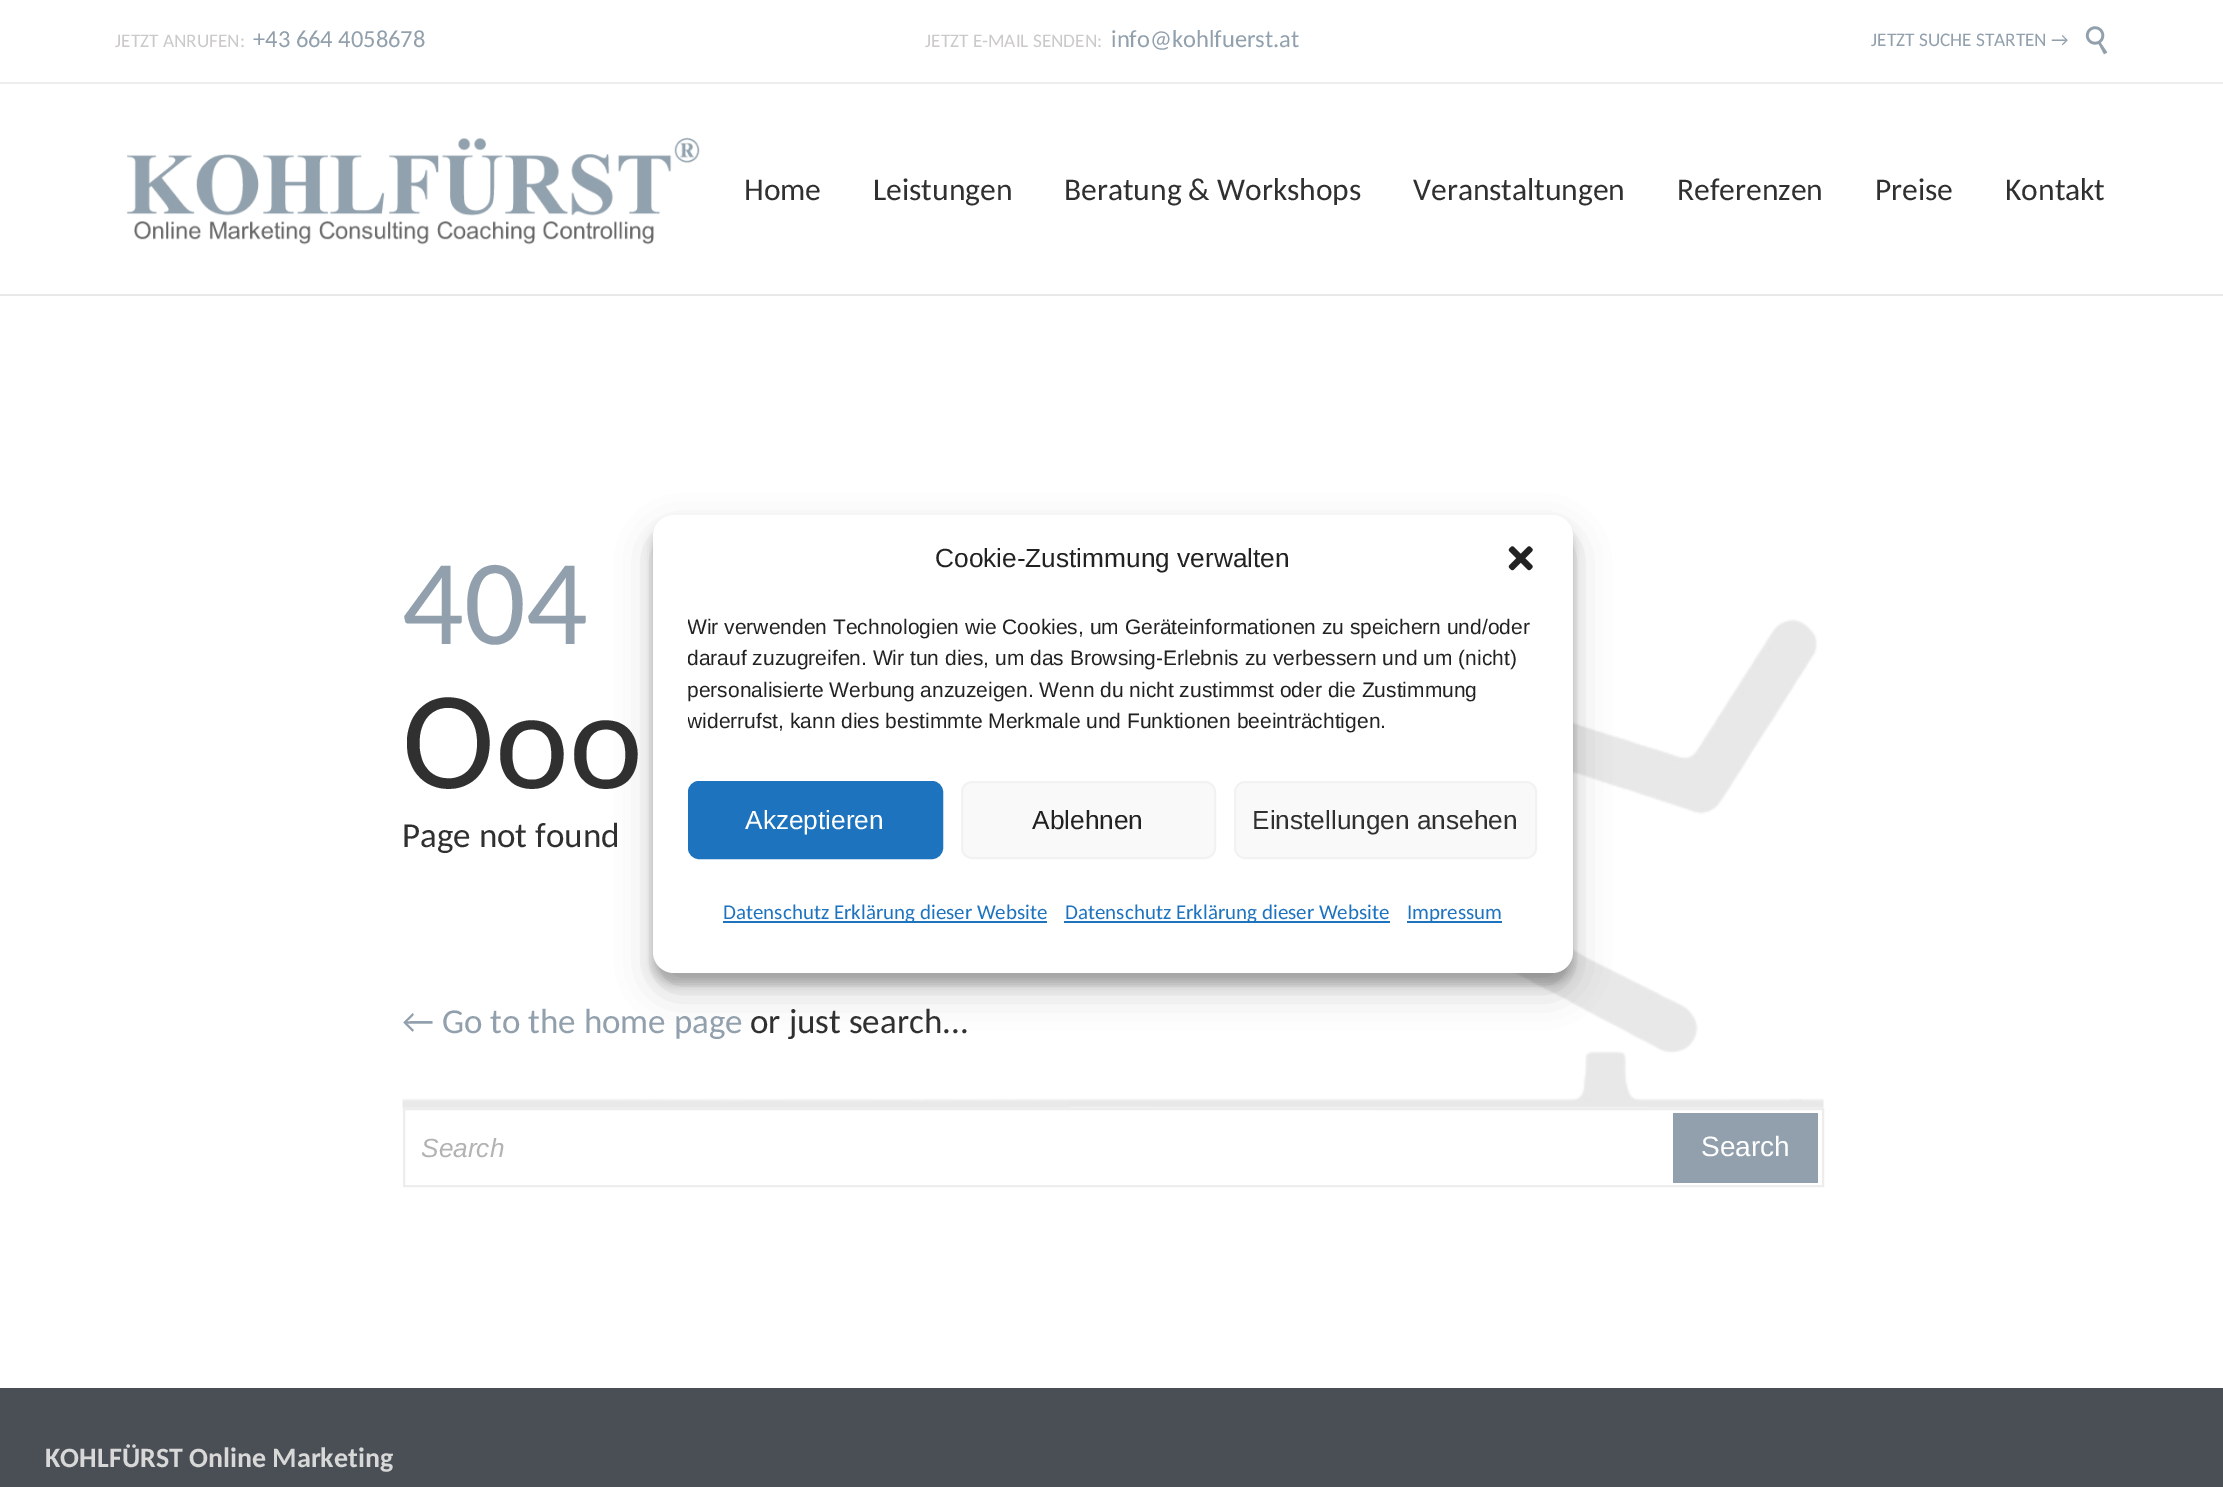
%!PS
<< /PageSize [2223 1487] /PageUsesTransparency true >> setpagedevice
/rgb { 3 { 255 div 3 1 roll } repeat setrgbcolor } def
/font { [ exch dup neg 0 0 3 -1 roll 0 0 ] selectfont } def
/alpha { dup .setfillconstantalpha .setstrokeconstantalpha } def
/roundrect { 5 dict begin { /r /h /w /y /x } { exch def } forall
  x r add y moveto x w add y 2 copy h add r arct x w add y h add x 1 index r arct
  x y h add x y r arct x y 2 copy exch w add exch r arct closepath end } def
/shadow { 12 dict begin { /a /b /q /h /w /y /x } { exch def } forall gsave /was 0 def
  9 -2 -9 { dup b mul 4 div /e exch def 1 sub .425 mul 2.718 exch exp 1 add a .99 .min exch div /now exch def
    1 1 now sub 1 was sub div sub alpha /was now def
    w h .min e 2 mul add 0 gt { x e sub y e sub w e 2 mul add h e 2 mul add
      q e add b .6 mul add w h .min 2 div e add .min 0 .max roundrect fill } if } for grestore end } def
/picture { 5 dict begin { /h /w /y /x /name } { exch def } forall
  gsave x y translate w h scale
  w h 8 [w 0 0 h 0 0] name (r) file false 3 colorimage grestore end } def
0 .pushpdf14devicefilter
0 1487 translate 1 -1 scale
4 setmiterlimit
74 79 85 rgb
0 0 2223 1487 rectfill
[
  [0 0 2223 294 255 255 255]
  [0 294 2223 2 232 232 232]
  [0 82 2223 2 237 237 237]
] { aload pop rgb rectfill } forall
(img/1.rgb) 2085 26 23 29 picture
(img/2.rgb) 127 137 573 108 picture
255 255 255 rgb
0 296 2223 1092 rectfill
(img/3.rgb) 402 619 1422 489 picture
237 237 237 rgb
2 setlinewidth
404 1109 1419 77 rectstroke
145 160 172 rgb
1673 1113 145 70 rectfill
0 0 0 rgb
653 525 920 459 21 5 0.23 shadow
653 532 920 459 21 17.5 0.19 shadow
255 255 255 rgb
653 515 920 458 21 roundrect fill
(img/4.rgb) 1508 546 25 25 picture
30 115 190 rgb
689 782 253 76 10 roundrect gsave fill grestore
stroke
249 249 249 rgb
962 782 253 76 10 roundrect gsave fill grestore
242 242 242 rgb
stroke
249 249 249 rgb
1235 782 301 76 10 roundrect gsave fill grestore
242 242 242 rgb
stroke
[
  [723 921 324 2 30 115 190]
  [1064 921 326 2 30 115 190]
  [1407 921 95 2 30 115 190]
] { aload pop rgb rectfill } forall
/Carlito-Regular 19.25 font
203 201 201 rgb
115 47 moveto (JETZT ANRUFEN:) show
/Carlito-Regular 24.5 font
145 160 172 rgb
253 47 moveto (+43 664 4058678) show
/Carlito-Regular 19.25 font
203 201 201 rgb
925 47 moveto (JETZT E-MAIL SENDEN:) show
/Carlito-Regular 24.5 font
145 160 172 rgb
1111 47 moveto (info@kohlfuerst.at) show
/Carlito-Regular 19.25 font
1871 46 moveto (JETZT SUCHE STARTEN →) show
/Carlito-Regular 31.5 font
48 48 48 rgb
[
  [(Home) 744 200]
  [(Leistungen) 873 200]
  [(Beratung & Workshops) 1064 200]
  [(Veranstaltungen) 1413 200]
  [(Referenzen) 1677 200]
  [(Preise) 1875 200]
  [(Kontakt) 2005 200]
] { aload pop moveto show } forall
/Carlito-Regular 122 font
145 160 172 rgb
402 644 moveto (404) show
/Carlito-Regular 140 font
48 48 48 rgb
402 788 moveto (Ooo) show
/Carlito-Regular 35 font
402 847 moveto (Page not found) show
145 160 172 rgb
402 1033 moveto (← Go to the home page) show
48 48 48 rgb
750 1033 moveto (or just search...) show
/LiberationSans-Italic 26.25 font
179 179 179 rgb
421 1157 moveto (Search) show
/LiberationSans-Regular 28 font
255 255 255 rgb
1701 1156 moveto (Search) show
/Carlito-Bold 28 font
216 216 216 rgb
45 1467 moveto (KOHLFÜRST Online Marketing) show
/LiberationSans-Regular 26.25 font
34 34 34 rgb
935 567 moveto (Cookie-Zustimmung verwalten) show
gsave
688 611 850 135 rectclip
/LiberationSans-Regular 21 font
687 634 moveto (Wir verwenden Technologien wie Cookies, um Geräteinformationen zu speichern und/oder) show
687 665 moveto (darauf zuzugreifen. Wir tun dies, um das Browsing-Erlebnis zu verbessern und um \(nicht\)) show
grestore
/LiberationSans-Regular 21 font
687 697 moveto (personalisierte Werbung anzuzeigen. Wenn du nicht zustimmst oder die Zustimmung) show
gsave
688 611 850 135 rectclip
687 728 moveto (widerrufst, kann dies bestimmte Merkmale und Funktionen beeinträchtigen.) show
grestore
/LiberationSans-Regular 26.25 font
255 255 255 rgb
745 829 moveto (Akzeptieren) show
34 34 34 rgb
1032 829 moveto (Ablehnen) show
48 48 48 rgb
1252 829 moveto (Einstellungen ansehen) show
/Carlito-Regular 21 font
30 115 190 rgb
[
  [(Datenschutz Erklärung dieser Website) 723 919]
  [(Datenschutz Erklärung dieser Website) 1065 919]
  [(Impressum) 1407 919]
] { aload pop moveto show } forall
.poppdf14devicefilter showpage
